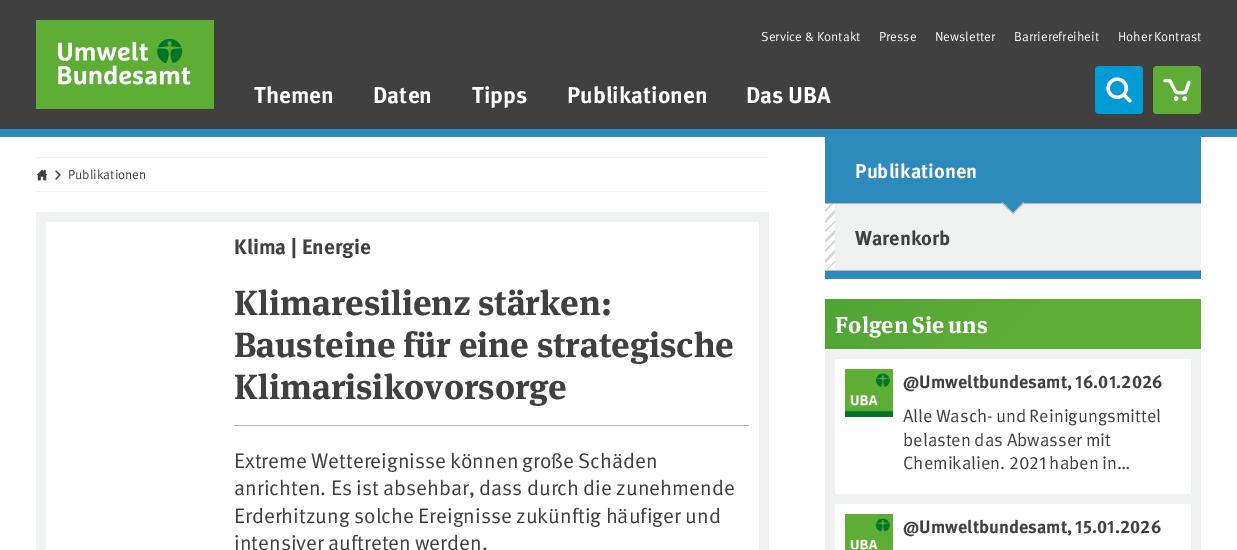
%!PS
<< /PageSize [1237 550] >> setpagedevice
/rgb { 3 { 255 div 3 1 roll } repeat setrgbcolor } def
/font { [ exch dup neg 0 0 3 -1 roll 0 0 ] selectfont } def
/roundrect { 5 dict begin { /r /h /w /y /x } { exch def } forall
  x r add y moveto x w add y 2 copy h add r arct x w add y h add x 1 index r arct
  x y h add x y r arct x y 2 copy exch w add exch r arct closepath end } def
/picture { 5 dict begin { /h /w /y /x /name } { exch def } forall
  gsave x y translate w h scale
  w h 8 [w 0 0 h 0 0] name (r) file false 3 colorimage grestore end } def
0 550 translate 1 -1 scale
4 setmiterlimit
255 255 255 rgb
0 0 1237 550 rectfill
64 64 64 rgb
0 0 1237 129 rectfill
44 138 188 rgb
0 129 1237 8 rectfill
(img/1.rgb) 36 20 178 89 picture
0 155 213 rgb
1095 66 48 48 4 roundrect fill
(img/2.rgb) 1106 77 26 26 picture
94 173 53 rgb
1153 66 48 48 4 roundrect fill
(img/3.rgb) 1163 78 28 23 picture
240 241 242 rgb
36 157 733 1 rectfill
36 191 733 1 rectfill
(img/4.rgb) 36 169 12 12 picture
(img/5.rgb) 55 170 6 10 picture
[
  [36 212 733 338 240 241 241]
  [46 222 713 328 255 255 255]
  [234 425 515 1 184 184 184]
  [835 204 366 66 240 241 241]
  [825 271 376 8 44 138 188]
  [825 137 376 66 44 138 188]
  [825 203 376 1 184 184 184]
] { aload pop rgb rectfill } forall
44 138 188 rgb
1013 191.5 moveto 1023.5 202 lineto 1013 212.5 lineto 1002.5 202 lineto closepath fill
184 184 184 rgb
1023.5 202 moveto 1024.5 203 lineto 1013 214 lineto 1012.5 213.5 lineto closepath fill
1002.5 202 moveto 1013.5 213.5 lineto 1013 214 lineto 1001.5 203 lineto closepath fill
825 270 376 1 rectfill
gsave 825 204 moveto 835 204 lineto 835 270 lineto 825 270 lineto closepath clip newpath
<< /ShadingType 2 /ColorSpace /DeviceRGB /Coords [849 256 809 216] /Extend [true true] /Function << /FunctionType 3 /Domain [0 1] /Functions [<< /FunctionType 2 /Domain [0 1] /C0 [1 1 1] /C1 [1 1 1] /N 1 >> << /FunctionType 2 /Domain [0 1] /C0 [0.847 0.847 0.847] /C1 [0.847 0.847 0.847] /N 1 >> << /FunctionType 2 /Domain [0 1] /C0 [1 1 1] /C1 [1 1 1] /N 1 >> << /FunctionType 2 /Domain [0 1] /C0 [0.847 0.847 0.847] /C1 [0.847 0.847 0.847] /N 1 >> << /FunctionType 2 /Domain [0 1] /C0 [1 1 1] /C1 [1 1 1] /N 1 >> << /FunctionType 2 /Domain [0 1] /C0 [0.847 0.847 0.847] /C1 [0.847 0.847 0.847] /N 1 >> << /FunctionType 2 /Domain [0 1] /C0 [1 1 1] /C1 [1 1 1] /N 1 >> << /FunctionType 2 /Domain [0 1] /C0 [0.847 0.847 0.847] /C1 [0.847 0.847 0.847] /N 1 >> << /FunctionType 2 /Domain [0 1] /C0 [1 1 1] /C1 [1 1 1] /N 1 >> << /FunctionType 2 /Domain [0 1] /C0 [0.847 0.847 0.847] /C1 [0.847 0.847 0.847] /N 1 >> << /FunctionType 2 /Domain [0 1] /C0 [1 1 1] /C1 [1 1 1] /N 1 >> << /FunctionType 2 /Domain [0 1] /C0 [0.847 0.847 0.847] /C1 [0.847 0.847 0.847] /N 1 >> << /FunctionType 2 /Domain [0 1] /C0 [1 1 1] /C1 [1 1 1] /N 1 >> << /FunctionType 2 /Domain [0 1] /C0 [0.847 0.847 0.847] /C1 [0.847 0.847 0.847] /N 1 >> << /FunctionType 2 /Domain [0 1] /C0 [1 1 1] /C1 [1 1 1] /N 1 >> << /FunctionType 2 /Domain [0 1] /C0 [0.847 0.847 0.847] /C1 [0.847 0.847 0.847] /N 1 >>] /Bounds [0.09 0.12 0.21 0.25 0.34 0.38 0.46 0.5 0.59 0.62 0.71 0.75 0.84 0.88 0.96] /Encode [0 1 0 1 0 1 0 1 0 1 0 1 0 1 0 1 0 1 0 1 0 1 0 1 0 1 0 1 0 1 0 1] >> >> shfill grestore
240 241 241 rgb
825 349 376 201 rectfill
gsave 825 299 moveto 1201 299 lineto 1201 349 lineto 825 349 lineto closepath clip newpath
<< /ShadingType 2 /ColorSpace /DeviceRGB /Coords [907 218 1120 431] /Extend [true true] /Function << /FunctionType 3 /Domain [0 1] /Functions [<< /FunctionType 2 /Domain [0 1] /C0 [0.31 0.647 0.212] /C1 [0.369 0.678 0.208] /N 1 >> << /FunctionType 2 /Domain [0 1] /C0 [0.369 0.678 0.208] /C1 [0.369 0.678 0.208] /N 1 >>] /Bounds [0.5] /Encode [0 1 0 1] >> >> shfill grestore
255 255 255 rgb
835 359 356 135 rectfill
(img/6.rgb) 845 369 48 48 picture
835 504 356 46 rectfill
(img/7.rgb) 845 514 48 36 picture
/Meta-Regular 13 font
[
  [(Service & Kontakt) 761 41]
  [(Presse) 879 41]
  [(Newsletter) 935 41]
  [(Barrierefreiheit) 1014 41]
] { aload pop moveto show } forall
1118 41 moveto -1 0 32 (Hoher Kontrast) widthshow
/Meta-Bold 23 font
[
  [(Themen) 254 103]
  [(Daten) 373 103]
  [(Tipps) 472 103]
  [(Publikationen) 567 103]
] { aload pop moveto show } forall
746 103 moveto -1 0 32 (Das UBA) widthshow
/Meta-Regular 13 font
64 64 64 rgb
68 179 moveto (Publikationen) show
/Meta-Bold 21 font
234 254 moveto (Klima | Energie) show
/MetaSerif-Bold 35 font
234 315 moveto -1 0 32 (Klimaresilienz stärken:) widthshow
234 357 moveto (Bausteine für eine strategische) show
234 399 moveto (Klimarisikovorsorge) show
/Meta-Regular 21 font
234 468 moveto -1 0 32 (Extreme Wettereignisse können große Schäden) widthshow
234 495 moveto -0.5 0 32 (anrichten. Es ist absehbar, dass durch die zunehmende) widthshow
234 523 moveto -0.5 0 32 (Erderhitzung solche Ereignisse zukünftig häufiger und) widthshow
234 550 moveto -1 0 32 (intensiver auftreten werden.) widthshow
/Meta-Bold 20 font
255 255 255 rgb
855 178 moveto (Publikationen) show
64 64 64 rgb
855 245 moveto (Warenkorb) show
/MetaSerif-Bold 23 font
255 255 255 rgb
835 333 moveto -1 0 32 (Folgen Sie uns) widthshow
/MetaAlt-Bold 18 font
64 64 64 rgb
903 388 moveto -1 0 32 (@Umweltbundesamt, 16.01.2026) widthshow
/Meta-Regular 18 font
903 422 moveto -1 0 32 (Alle Wasch- und Reinigungsmittel) widthshow
903 446 moveto -0.5 0 32 (belasten das Abwasser mit) widthshow
/MetaAlt-Regular 18 font
903 469 moveto -0.5 0 32 (Chemikalien. 2021 haben in…) widthshow
/MetaAlt-Bold 18 font
903 533 moveto -1 0 32 (@Umweltbundesamt, 15.01.2026) widthshow
showpage
